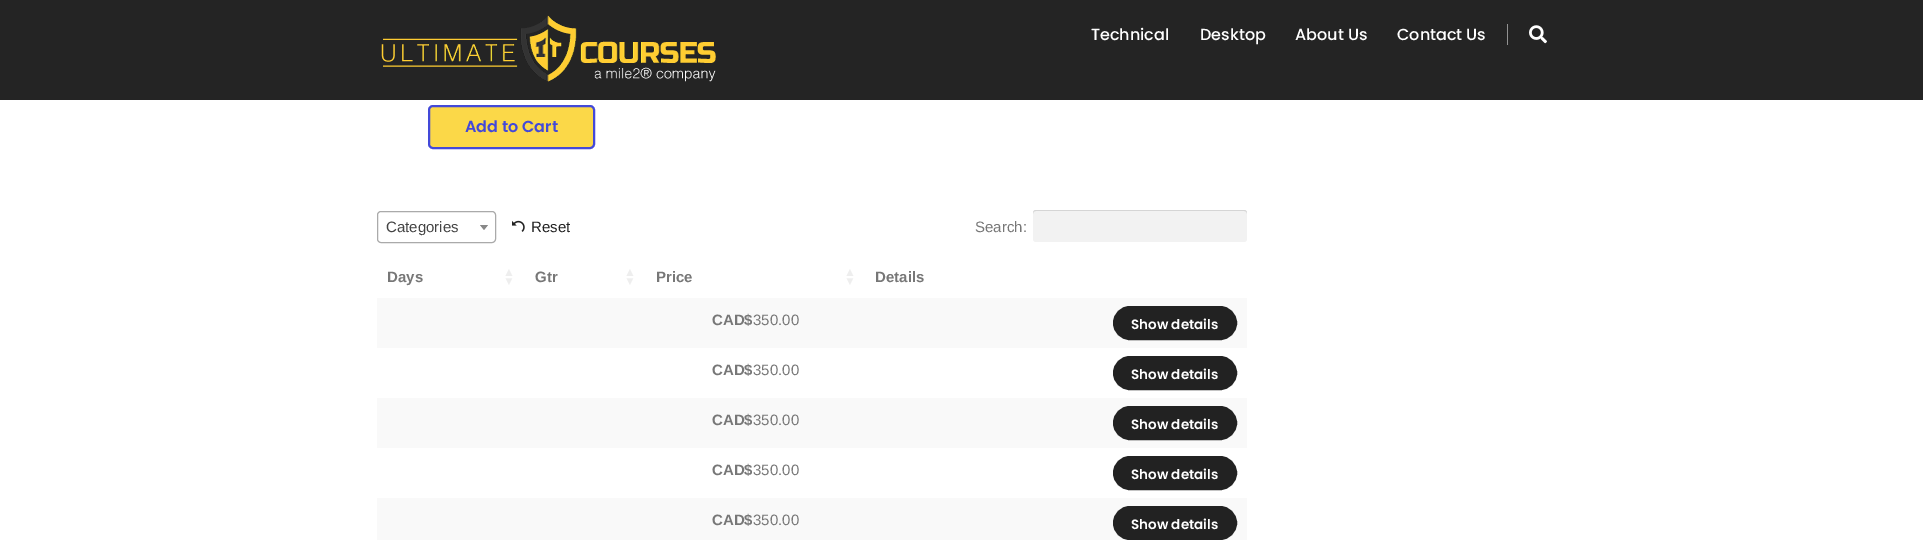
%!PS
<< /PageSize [1923 540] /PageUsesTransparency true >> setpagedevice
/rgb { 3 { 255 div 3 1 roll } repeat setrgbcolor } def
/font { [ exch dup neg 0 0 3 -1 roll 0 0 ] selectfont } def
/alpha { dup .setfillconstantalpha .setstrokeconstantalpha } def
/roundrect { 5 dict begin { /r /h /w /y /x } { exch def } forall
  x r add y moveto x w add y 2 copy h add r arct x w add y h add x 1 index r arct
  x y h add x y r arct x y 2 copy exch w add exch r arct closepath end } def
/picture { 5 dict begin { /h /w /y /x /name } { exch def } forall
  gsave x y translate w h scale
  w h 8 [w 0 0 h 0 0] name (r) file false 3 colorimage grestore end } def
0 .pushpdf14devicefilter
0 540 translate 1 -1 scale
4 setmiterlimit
255 255 255 rgb
0 0 1923 540 rectfill
36 36 36 rgb
0 0 1923 100 rectfill
(img/1.rgb) 381 15 335 67 picture
146 146 146 rgb
1507 24 1 21 rectfill
(img/2.rgb) 1529 25 18 19 picture
251 216 72 rgb
429 106 165 42 4 roundrect gsave fill grestore
67 73 217 rgb
2 setlinewidth
stroke
170 170 170 rgb
1 setlinewidth
377.5 211.5 118 31 3.5 roundrect stroke
136 136 136 rgb
480 225 moveto 488 225 lineto 484 230 lineto closepath fill
(img/3.rgb) 512 220 13 12 picture
242 242 242 rgb
1033 210 214 32 3 roundrect fill
0.12 alpha
0 0 0 rgb
1036 211 moveto 1244 211 lineto 1246 211 1247 212 1247 214 curveto 1247 213 lineto 1247 211 1246 210 1244 210 curveto 1036 210 lineto 1034 210 1033 211 1033 213 curveto 1033 214 lineto 1033 212 1034 211 1036 211 curveto closepath fill
1 alpha
249 249 249 rgb
377 298 870 50 rectfill
34 34 34 rgb
1114 307 122 32 16 roundrect gsave fill grestore
2 setlinewidth
stroke
1114 357 122 32 16 roundrect gsave fill grestore
stroke
249 249 249 rgb
377 398 870 50 rectfill
34 34 34 rgb
1114 407 122 32 16 roundrect gsave fill grestore
stroke
1114 457 122 32 16 roundrect gsave fill grestore
stroke
249 249 249 rgb
377 498 870 42 rectfill
34 34 34 rgb
1114 507 122 32 16 roundrect gsave fill grestore
stroke
/Poppins-Medium 16 font
255 255 255 rgb
[
  [(Technical) 1091 40]
  [(Desktop) 1200 40]
  [(About Us) 1295 40]
  [(Contact Us) 1397 40]
] { aload pop moveto show } forall
/Poppins-SemiBold 16 font
67 73 217 rgb
465 132 moveto (Add to Cart) show
/LiberationSans-Regular 15 font
68 68 68 rgb
386 232 moveto (Categories) show
34 34 34 rgb
531 232 moveto (Reset) show
119 119 119 rgb
975 232 moveto (Search:) show
/LiberationSans-Bold 15 font
387 282 moveto (Days) show
/LiberationSans-Bold 12 font
238 238 238 rgb
503 276 moveto (▲) show
503 285 moveto (▼) show
/LiberationSans-Bold 15 font
119 119 119 rgb
535 282 moveto (Gtr) show
/LiberationSans-Bold 12 font
238 238 238 rgb
624 276 moveto (▲) show
624 285 moveto (▼) show
/LiberationSans-Bold 15 font
119 119 119 rgb
656 282 moveto (Price) show
/LiberationSans-Bold 12 font
238 238 238 rgb
844 276 moveto (▲) show
844 285 moveto (▼) show
/LiberationSans-Bold 15 font
119 119 119 rgb
875 282 moveto (Details) show
712 325 moveto (CAD$) show
/LiberationSans-Regular 15 font
753 325 moveto (350.00) show
/Poppins-SemiBold 13.5 font
255 255 255 rgb
1131 329 moveto (Show details) show
/LiberationSans-Bold 15 font
119 119 119 rgb
712 375 moveto (CAD$) show
/LiberationSans-Regular 15 font
753 375 moveto (350.00) show
/Poppins-SemiBold 13.5 font
255 255 255 rgb
1131 379 moveto (Show details) show
/LiberationSans-Bold 15 font
119 119 119 rgb
712 425 moveto (CAD$) show
/LiberationSans-Regular 15 font
753 425 moveto (350.00) show
/Poppins-SemiBold 13.5 font
255 255 255 rgb
1131 429 moveto (Show details) show
/LiberationSans-Bold 15 font
119 119 119 rgb
712 475 moveto (CAD$) show
/LiberationSans-Regular 15 font
753 475 moveto (350.00) show
/Poppins-SemiBold 13.5 font
255 255 255 rgb
1131 479 moveto (Show details) show
/LiberationSans-Bold 15 font
119 119 119 rgb
712 525 moveto (CAD$) show
/LiberationSans-Regular 15 font
753 525 moveto (350.00) show
/Poppins-SemiBold 13.5 font
255 255 255 rgb
1131 529 moveto (Show details) show
.poppdf14devicefilter showpage
